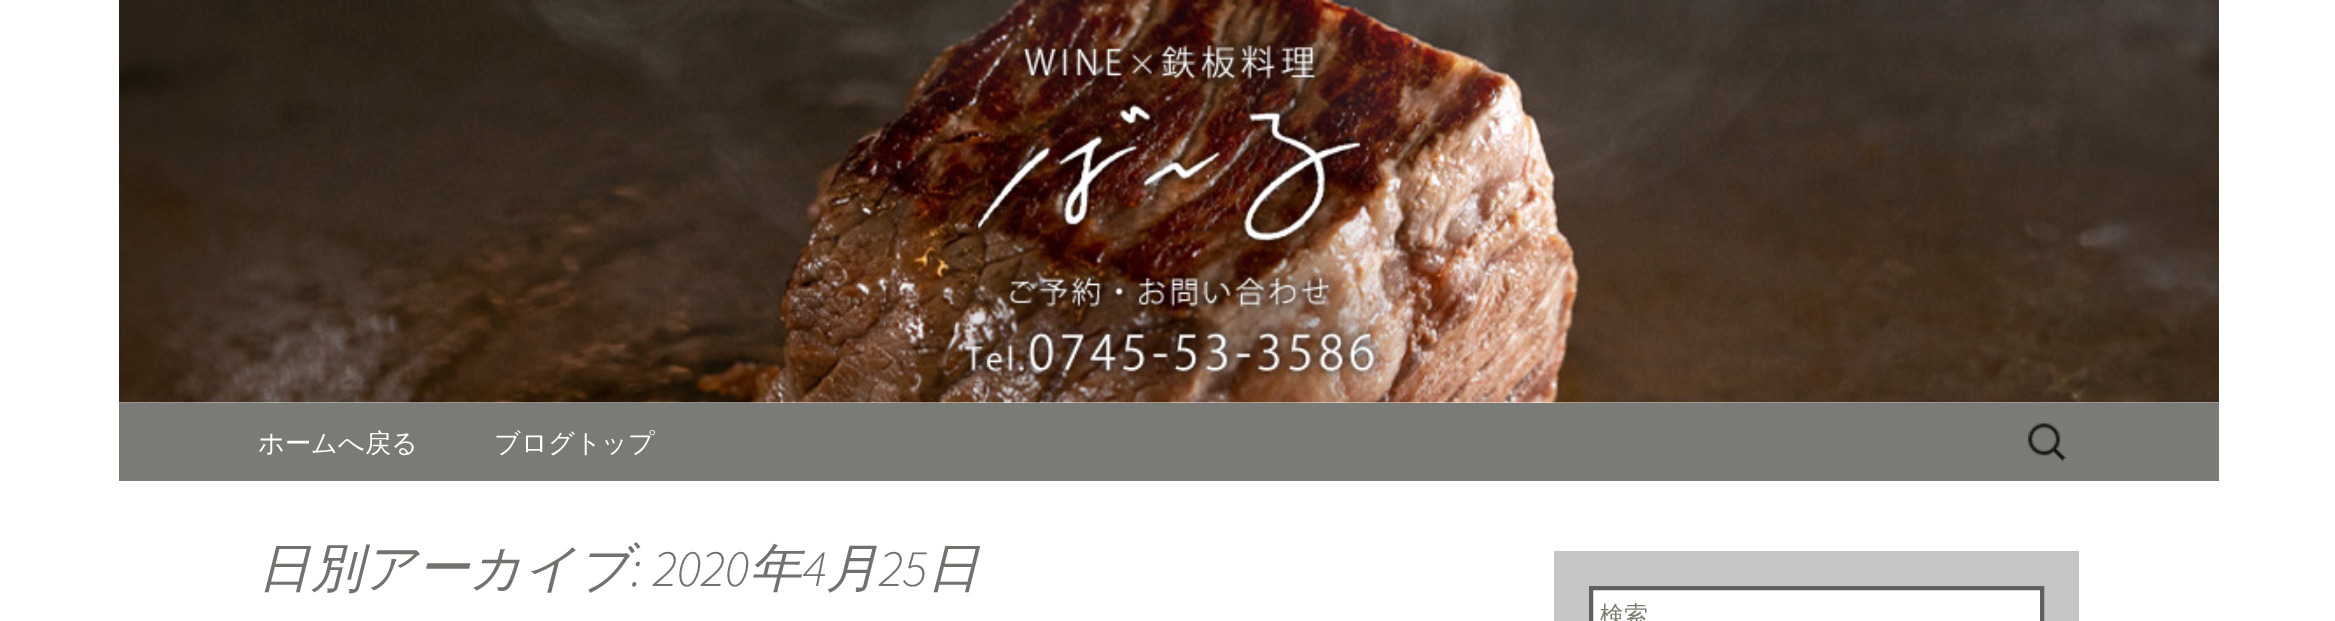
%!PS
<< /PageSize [2335 621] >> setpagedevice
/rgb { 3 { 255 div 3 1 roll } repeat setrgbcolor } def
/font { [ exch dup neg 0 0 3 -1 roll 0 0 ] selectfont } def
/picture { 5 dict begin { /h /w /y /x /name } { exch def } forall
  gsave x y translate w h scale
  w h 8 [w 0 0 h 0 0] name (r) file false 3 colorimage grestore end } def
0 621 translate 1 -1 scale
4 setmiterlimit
255 255 255 rgb
0 0 2335 621 rectfill
(img/1.rgb) 119 0 2100 403 picture
122 123 119 rgb
119 403 2100 78 rectfill
(img/2.rgb) 2028 423 38 38 picture
197 198 195 rgb
1554 551 525 70 rectfill
255 255 255 rgb
1591 588 moveto 2042 588 lineto 2042 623 lineto 1591 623 lineto closepath gsave fill grestore
96 96 95 rgb
4 setlinewidth
stroke
/WenQuanYiZenHei-Medium 26.25 font
255 255 255 rgb
258 452 moveto (ホームへ戻る) show
494 452 moveto (ブログトップ) show
/WenQuanYiZenHei-MediumItalic 52.5 font
112 114 110 rgb
258 586 moveto (日別アーカイブ) show
/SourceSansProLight-LightItalic 52.5 font
631 586 moveto (: 2020) show
/WenQuanYiZenHei-MediumItalic 52.5 font
749 586 moveto (年) show
/SourceSansProLight-LightItalic 52.5 font
802 586 moveto (4) show
/WenQuanYiZenHei-MediumItalic 52.5 font
826 586 moveto (月) show
/SourceSansProLight-LightItalic 52.5 font
879 586 moveto (25) show
/WenQuanYiZenHei-MediumItalic 52.5 font
927 586 moveto (日) show
/WenQuanYiZenHei-Medium 24 font
125 123 109 rgb
1600 623 moveto (検索) show
showpage
